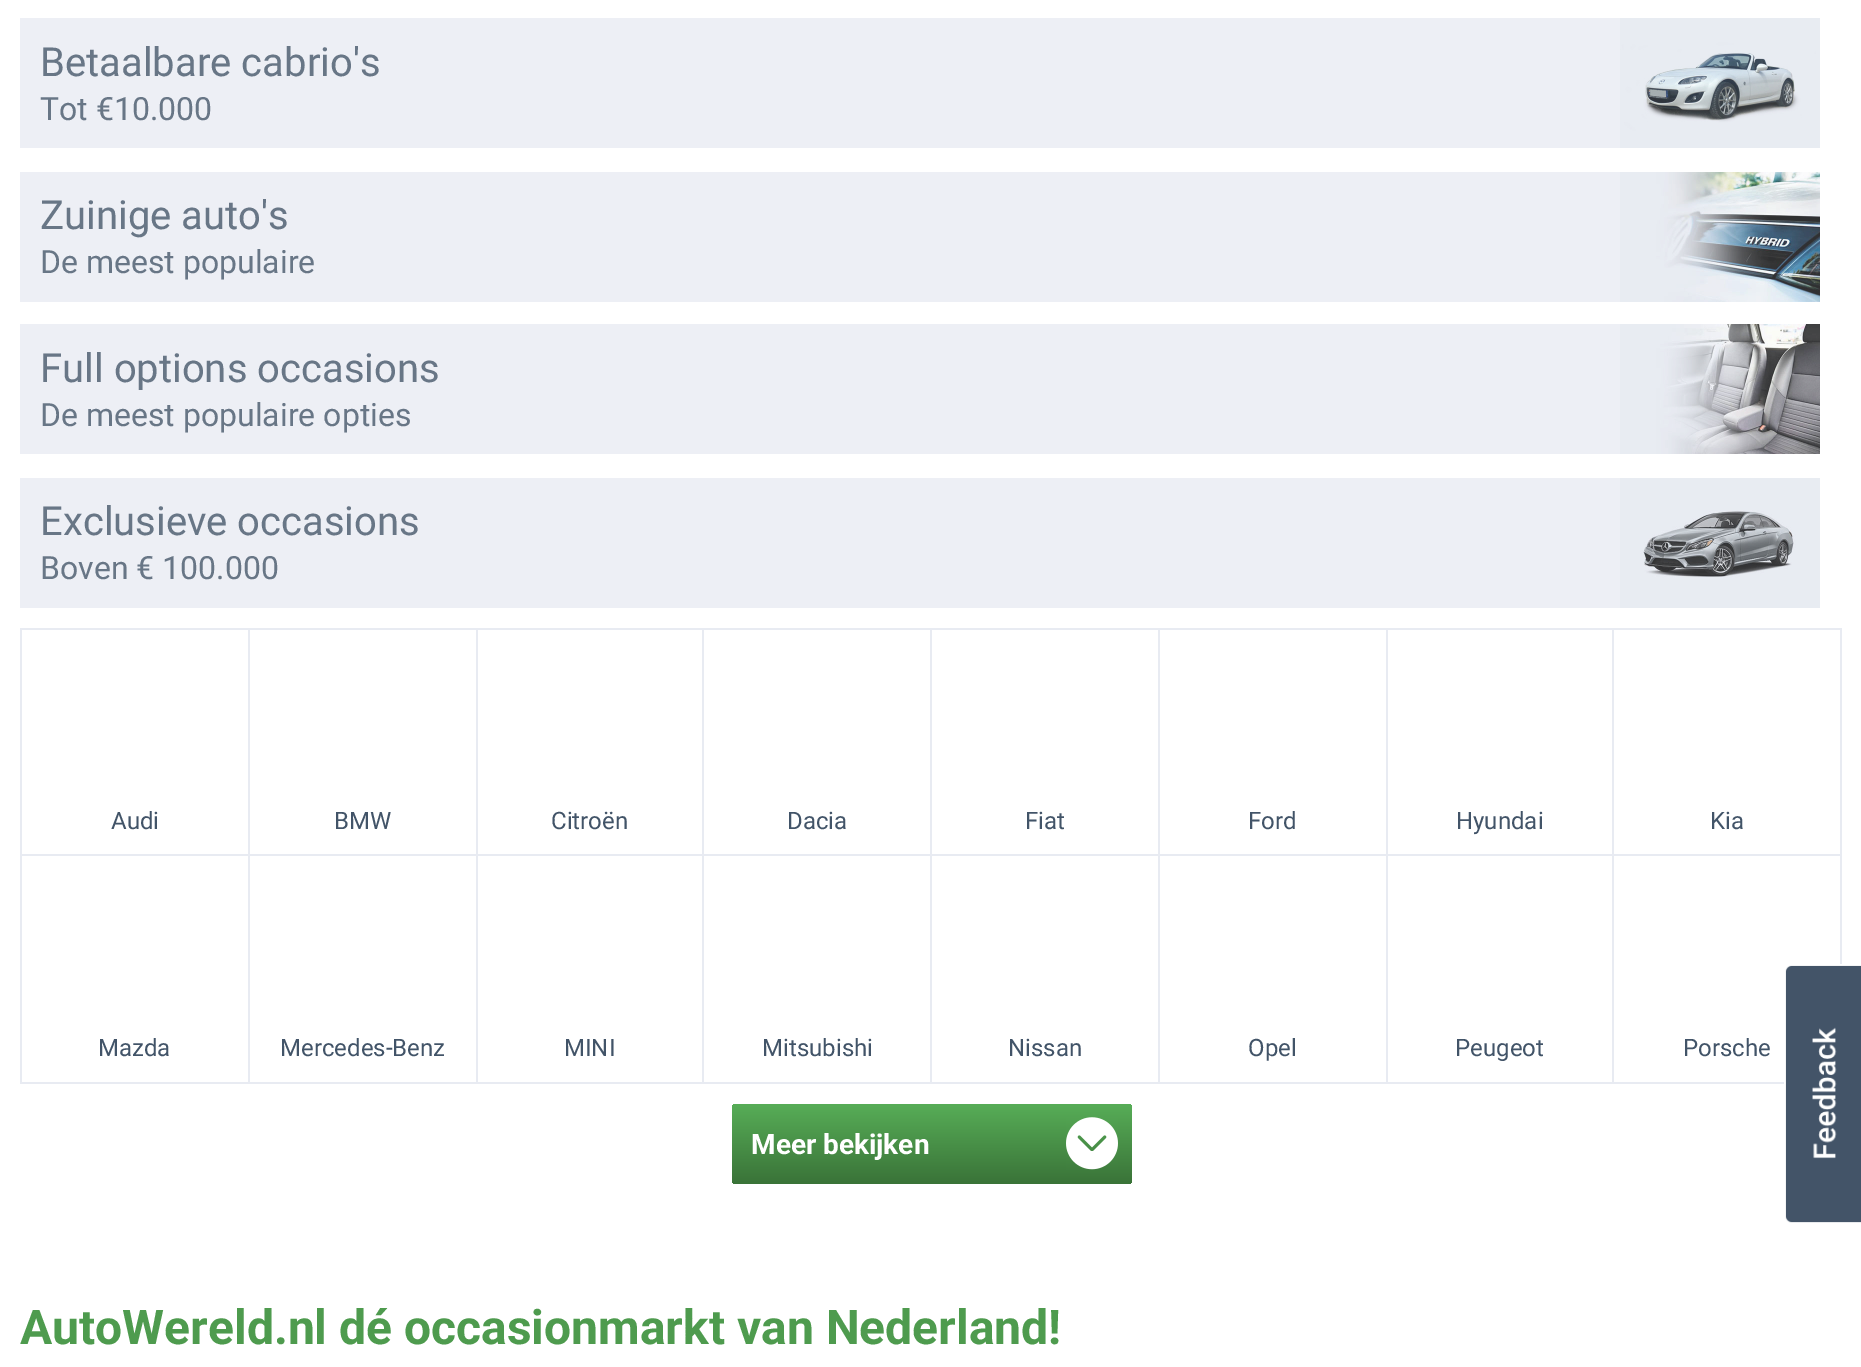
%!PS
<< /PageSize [1861 1367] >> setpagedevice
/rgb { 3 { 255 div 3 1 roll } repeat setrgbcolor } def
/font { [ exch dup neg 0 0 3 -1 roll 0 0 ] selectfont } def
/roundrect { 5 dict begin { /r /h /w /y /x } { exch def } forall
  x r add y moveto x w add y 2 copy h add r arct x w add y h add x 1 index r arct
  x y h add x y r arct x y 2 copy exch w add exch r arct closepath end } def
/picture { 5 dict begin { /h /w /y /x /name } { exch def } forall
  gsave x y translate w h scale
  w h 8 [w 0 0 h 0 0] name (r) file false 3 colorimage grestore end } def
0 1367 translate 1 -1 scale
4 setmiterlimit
255 255 255 rgb
0 0 1861 1367 rectfill
237 239 245 rgb
20 18 1800 130 rectfill
(img/1.rgb) 1620 18 200 130 picture
20 172 1800 130 rectfill
(img/2.rgb) 1620 172 200 130 picture
20 324 1800 130 rectfill
(img/3.rgb) 1620 324 200 130 picture
20 478 1800 130 rectfill
(img/4.rgb) 1620 478 200 130 picture
[
  [20 628 2 456 232 235 242]
  [22 628 1820 2 232 235 242]
  [248 628 2 456 232 235 242]
  [22 854 228 2 232 235 242]
  [476 628 2 456 232 235 242]
  [250 854 228 2 232 235 242]
  [702 628 2 456 232 235 242]
  [478 854 226 2 232 235 242]
  [930 628 2 456 232 235 242]
  [704 854 228 2 232 235 242]
  [1158 628 2 456 232 235 242]
  [932 854 228 2 232 235 242]
  [1386 628 2 456 232 235 242]
  [1160 854 228 2 232 235 242]
  [1612 628 2 456 232 235 242]
  [1388 854 226 2 232 235 242]
  [1840 628 2 336 232 235 242]
  [1614 854 228 2 232 235 242]
  [22 1082 1762 2 232 235 242]
] { aload pop rgb rectfill } forall
gsave 732 1104 400 80 4 roundrect clip newpath
<< /ShadingType 2 /ColorSpace /DeviceRGB /Coords [932 1104 932 1184] /Extend [true true] /Function << /FunctionType 2 /Domain [0 1] /C0 [0.341 0.678 0.341] /C1 [0.227 0.451 0.22] /N 1 >> >> shfill grestore
(img/5.rgb) 1066 1117 52 53 picture
(img/6.rgb) 1784 964 77 259 picture
/Roboto-Regular 40 font
104 118 134 rgb
40 76 moveto (Betaalbare cabrio's) show
/Roboto-Regular 32 font
40 120 moveto (Tot €10.000) show
/Roboto-Regular 40 font
40 229 moveto (Zuinige auto's) show
/Roboto-Regular 32 font
40 273 moveto (De meest populaire) show
/Roboto-Regular 40 font
40 382 moveto (Full options occasions) show
/Roboto-Regular 32 font
40 426 moveto (De meest populaire opties) show
/Roboto-Regular 40 font
40 535 moveto (Exclusieve occasions) show
/Roboto-Regular 32 font
40 579 moveto (Boven € 100.000) show
/Roboto-Regular 24 font
66 84 104 rgb
[
  [(Audi) 111 829]
  [(BMW) 334 829]
  [(Citroën) 551 829]
  [(Dacia) 787 829]
  [(Fiat) 1025 829]
  [(Ford) 1248 829]
  [(Hyundai) 1456 829]
  [(Kia) 1710 829]
  [(Mazda) 98 1056]
  [(Mercedes-Benz) 280 1056]
  [(MINI) 564 1056]
  [(Mitsubishi) 762 1056]
  [(Nissan) 1008 1056]
  [(Opel) 1248 1056]
  [(Peugeot) 1455 1056]
  [(Porsche) 1683 1056]
] { aload pop moveto show } forall
/Roboto-Bold 28 font
255 255 255 rgb
751 1154 moveto (Meer bekijken) show
/Roboto-Bold 48 font
78 155 78 rgb
20 1344 moveto (AutoWereld.nl dé occasionmarkt van Nederland!) show
showpage
